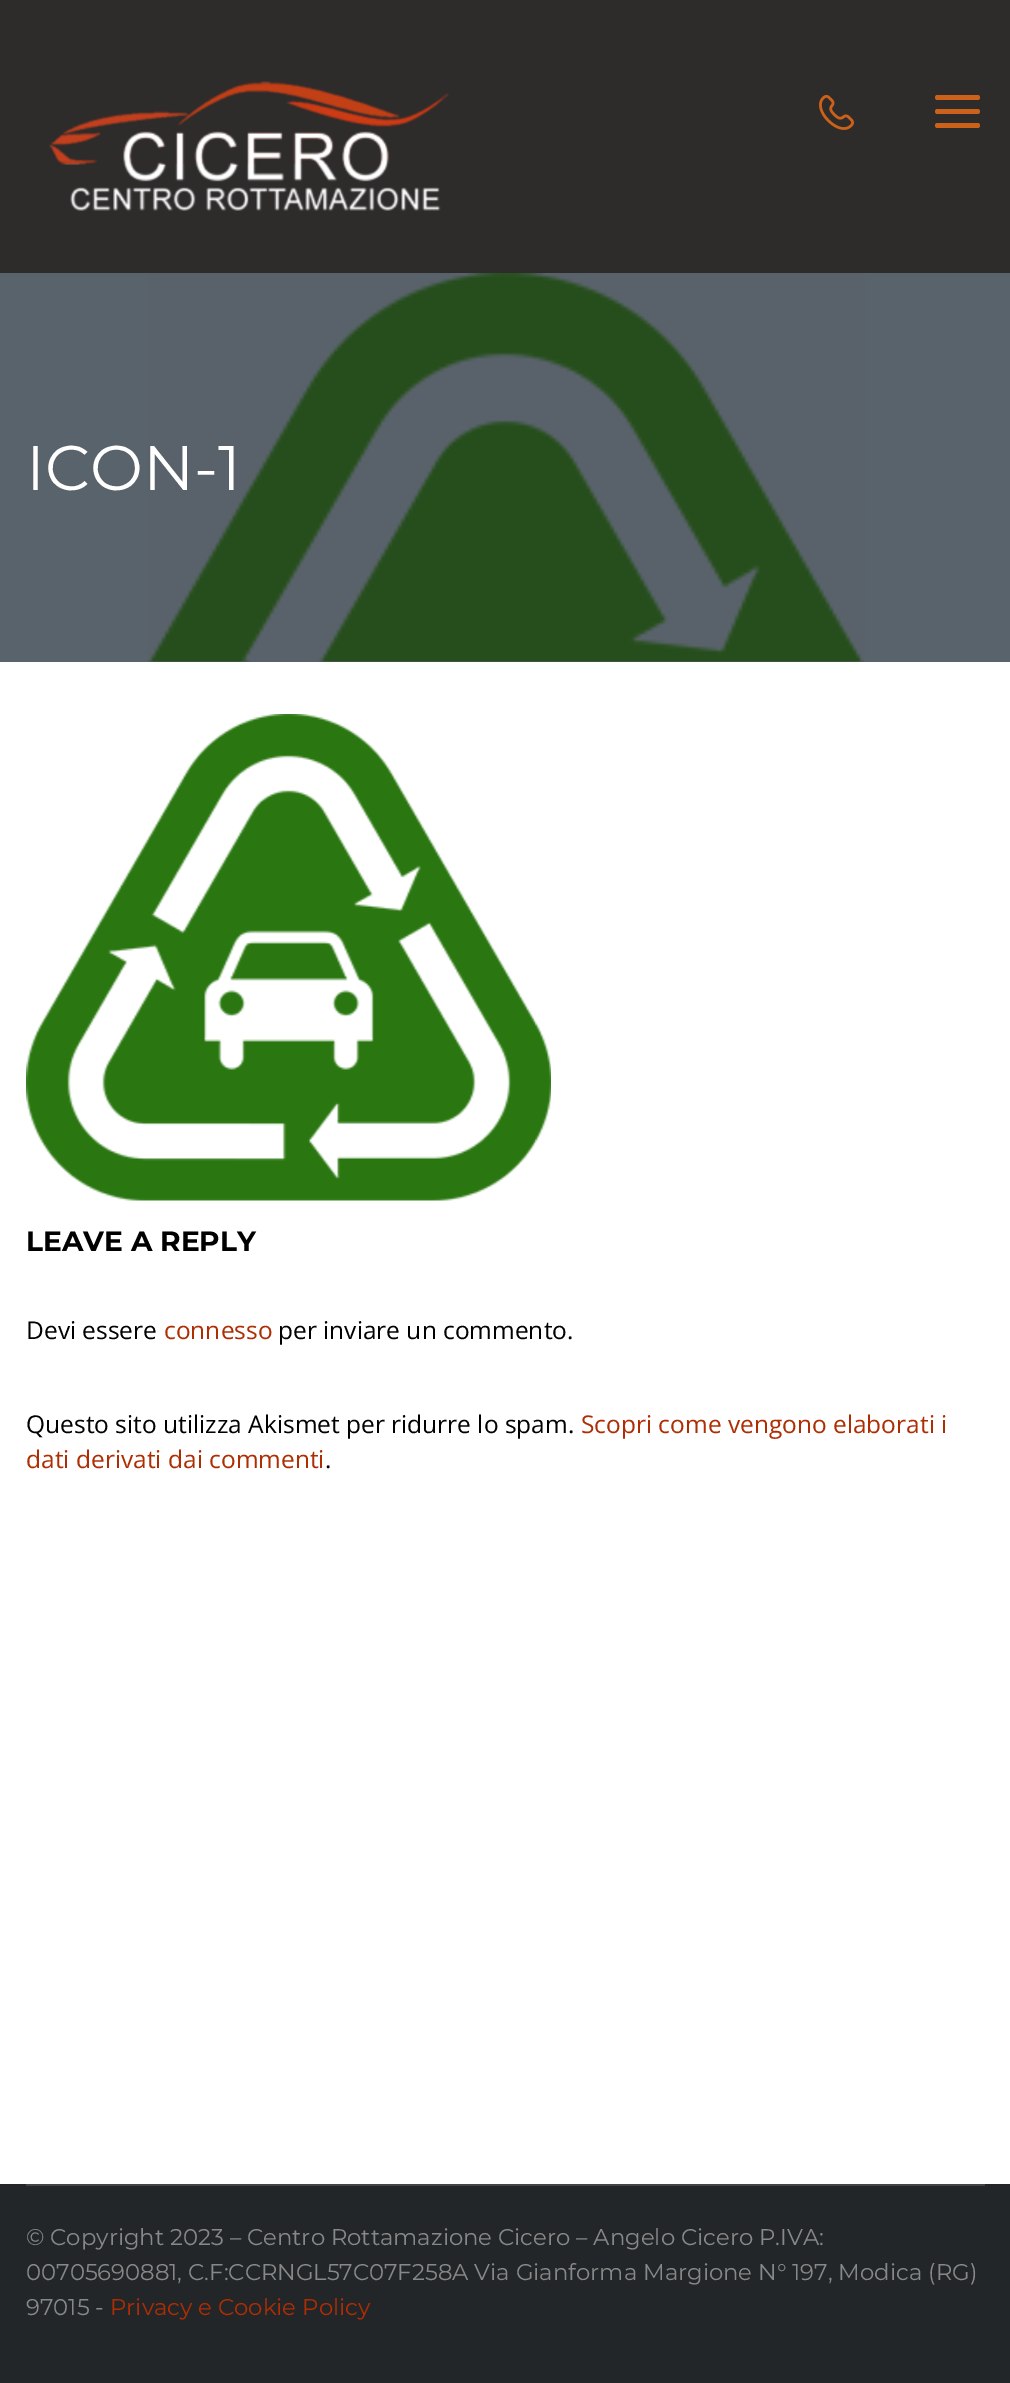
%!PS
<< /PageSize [1010 2383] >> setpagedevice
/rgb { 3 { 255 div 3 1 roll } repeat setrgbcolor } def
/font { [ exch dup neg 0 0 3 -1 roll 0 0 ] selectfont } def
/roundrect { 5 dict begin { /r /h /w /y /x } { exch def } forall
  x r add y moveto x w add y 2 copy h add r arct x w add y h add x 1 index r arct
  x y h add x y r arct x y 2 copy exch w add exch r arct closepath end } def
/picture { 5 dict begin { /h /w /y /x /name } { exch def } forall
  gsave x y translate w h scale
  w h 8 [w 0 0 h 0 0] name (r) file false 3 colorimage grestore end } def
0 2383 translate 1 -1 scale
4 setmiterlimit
255 255 255 rgb
0 0 1010 2383 rectfill
46 43 43 rgb
0 0 1010 273 rectfill
(img/1.rgb) 49 81 400 130 picture
(img/2.rgb) 819 94 35 36 picture
204 97 25 rgb
935 95 45 5 2.5 roundrect fill
935 109 45 5 2.5 roundrect fill
935 123 45 5 2.5 roundrect fill
89 99 107 rgb
0 273 1010 389 rectfill
(img/3.rgb) 147 273 718 389 picture
(img/4.rgb) 26 714 525 487 picture
35 38 40 rgb
0 2184 1010 199 rectfill
68 68 68 rgb
26 2184 959 2 rectfill
/Montserrat-Regular 63 font
255 255 255 rgb
26 490 moveto (ICON-1) show
/Montserrat-Bold 28 font
0 0 0 rgb
26 1251 moveto (LEAVE A REPLY) show
/OpenSans-Regular 24.5 font
26 1339 moveto (Devi essere) show
174 45 3 rgb
164 1339 moveto (connesso) show
0 0 0 rgb
278 1339 moveto (per inviare un commento.) show
26 1433 moveto (Questo sito utilizza Akismet per ridurre lo spam.) show
174 45 3 rgb
581 1433 moveto (Scopri come vengono elaborati i) show
26 1468 moveto (dati derivati dai commenti) show
0 0 0 rgb
325 1468 moveto (.) show
/Montserrat-Regular 22.75 font
136 136 136 rgb
[
  [(© Copyright 2023 – Centro Rottamazione Cicero – Angelo Cicero P.IVA:) 26 2245]
  [(00705690881, C.F:CCRNGL57C07F258A Via Gianforma Margione N° 197, Modica \(RG\)) 26 2280]
  [(97015 -) 26 2315]
] { aload pop moveto show } forall
174 45 3 rgb
110 2315 moveto (Privacy e Cookie Policy) show
showpage
